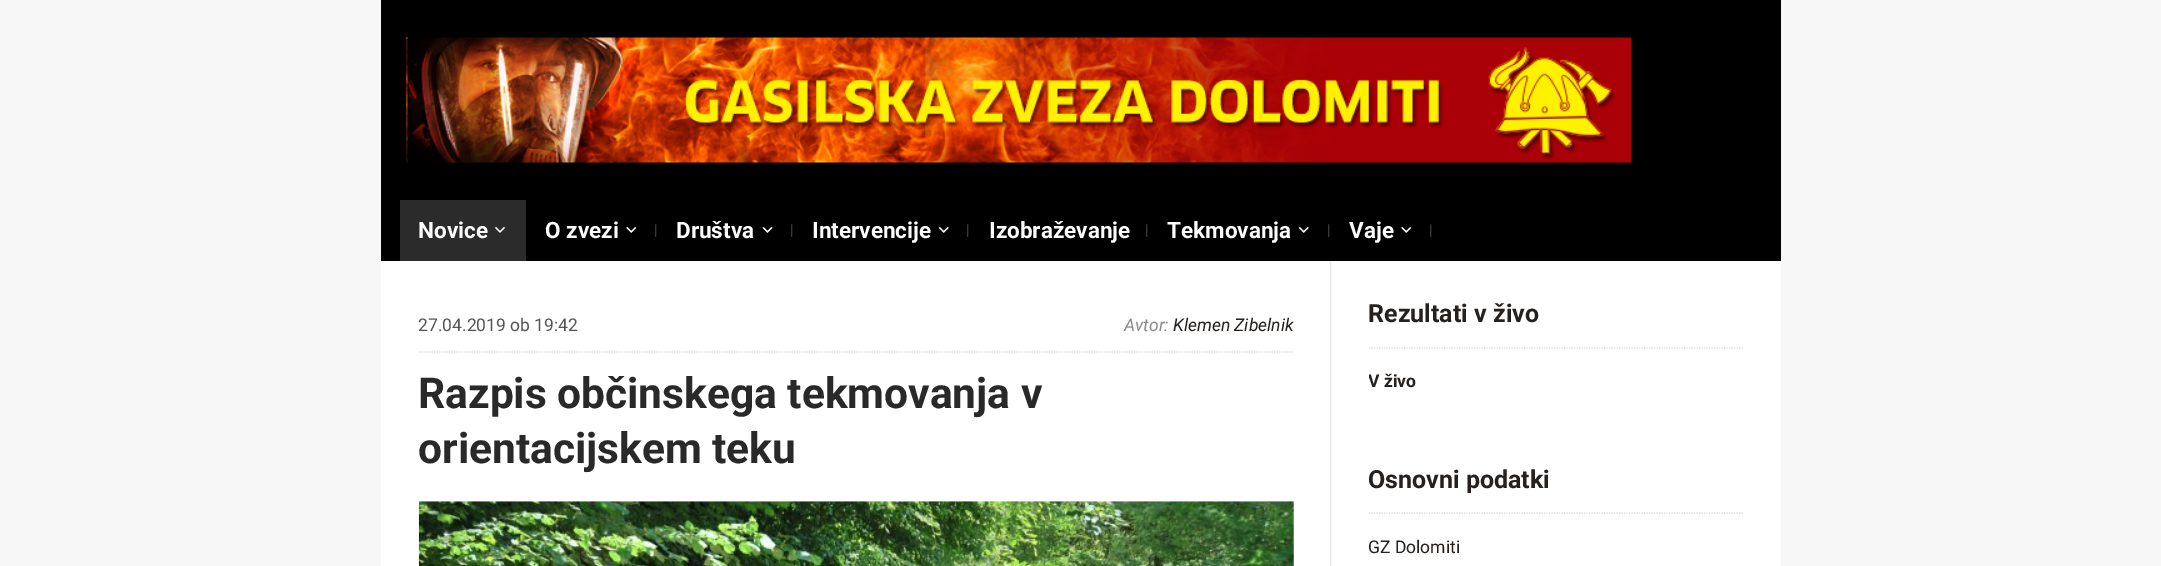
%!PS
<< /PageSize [2161 566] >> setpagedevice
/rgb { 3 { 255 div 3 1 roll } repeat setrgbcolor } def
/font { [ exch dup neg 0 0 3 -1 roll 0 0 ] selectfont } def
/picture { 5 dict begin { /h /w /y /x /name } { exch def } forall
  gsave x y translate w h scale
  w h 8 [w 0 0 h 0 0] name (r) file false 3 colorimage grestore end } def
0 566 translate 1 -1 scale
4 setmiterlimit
247 247 247 rgb
0 0 2161 566 rectfill
255 255 255 rgb
381 261 1400 305 rectfill
(img/1.rgb) 1330 261 2 305 picture
0 0 0 rgb
381 0 1400 261 rectfill
(img/2.rgb) 406 37 1226 126 picture
44 43 43 rgb
400 200 126 61 rectfill
(img/3.rgb) 494 227 12 6 picture
(img/4.rgb) 626 227 11 6 picture
(img/5.rgb) 762 227 11 6 picture
(img/6.rgb) 938 227 11 6 picture
(img/6.rgb) 1298 227 11 6 picture
(img/4.rgb) 1401 227 11 6 picture
215 215 215 rgb
1.2 setlinewidth
[1.25 1.25] 0 setdash
419 352 moveto 1294 352 lineto stroke
(img/7.rgb) 418 501 876 65 picture
221 221 221 rgb
1369 348 moveto 1744 348 lineto stroke
1369 513 moveto 1744 513 lineto stroke
/Roboto-Bold 22.5 font
255 255 255 rgb
418 238 moveto (Novice) show
545 238 moveto (O zvezi) show
/Roboto-Regular 15 font
77 77 77 rgb
654 235 moveto (|) show
/Roboto-Bold 22.5 font
255 255 255 rgb
676 238 moveto (Društva) show
/Roboto-Regular 15 font
77 77 77 rgb
790 235 moveto (|) show
/Roboto-Bold 22.5 font
255 255 255 rgb
812 238 moveto (Intervencije) show
/Roboto-Regular 15 font
77 77 77 rgb
966 235 moveto (|) show
/Roboto-Bold 22.5 font
255 255 255 rgb
989 238 moveto (Izobraževanje) show
/Roboto-Regular 15 font
77 77 77 rgb
1145 235 moveto (|) show
/Roboto-Bold 22.5 font
255 255 255 rgb
1167 238 moveto (Tekmovanja) show
/Roboto-Regular 15 font
77 77 77 rgb
1327 235 moveto (|) show
/Roboto-Bold 22.5 font
255 255 255 rgb
1349 238 moveto (Vaje) show
/Roboto-Regular 15 font
77 77 77 rgb
1429 235 moveto (|) show
/Roboto-Regular 17.5 font
85 85 85 rgb
418 331 moveto (27.04.2019 ob 19:42) show
/Roboto-Italic 17.5 font
139 138 138 rgb
1124 331 moveto (Avtor:) show
36 33 31 rgb
1173 331 moveto (Klemen Zibelnik) show
/Roboto-Bold 42.5 font
41 41 41 rgb
418 408 moveto (Razpis občinskega tekmovanja v) show
418 463 moveto (orientacijskem teku) show
/Roboto-Bold 25 font
36 33 31 rgb
1368 322 moveto (Rezultati v živo) show
gsave
1369 299 375 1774 rectclip
/Roboto-Bold 17.5 font
1368 387 moveto (V živo) show
grestore
1368 488 moveto (Osnovni podatki) show
/Roboto-Regular 17.5 font
1368 553 moveto (GZ Dolomiti) show
showpage
